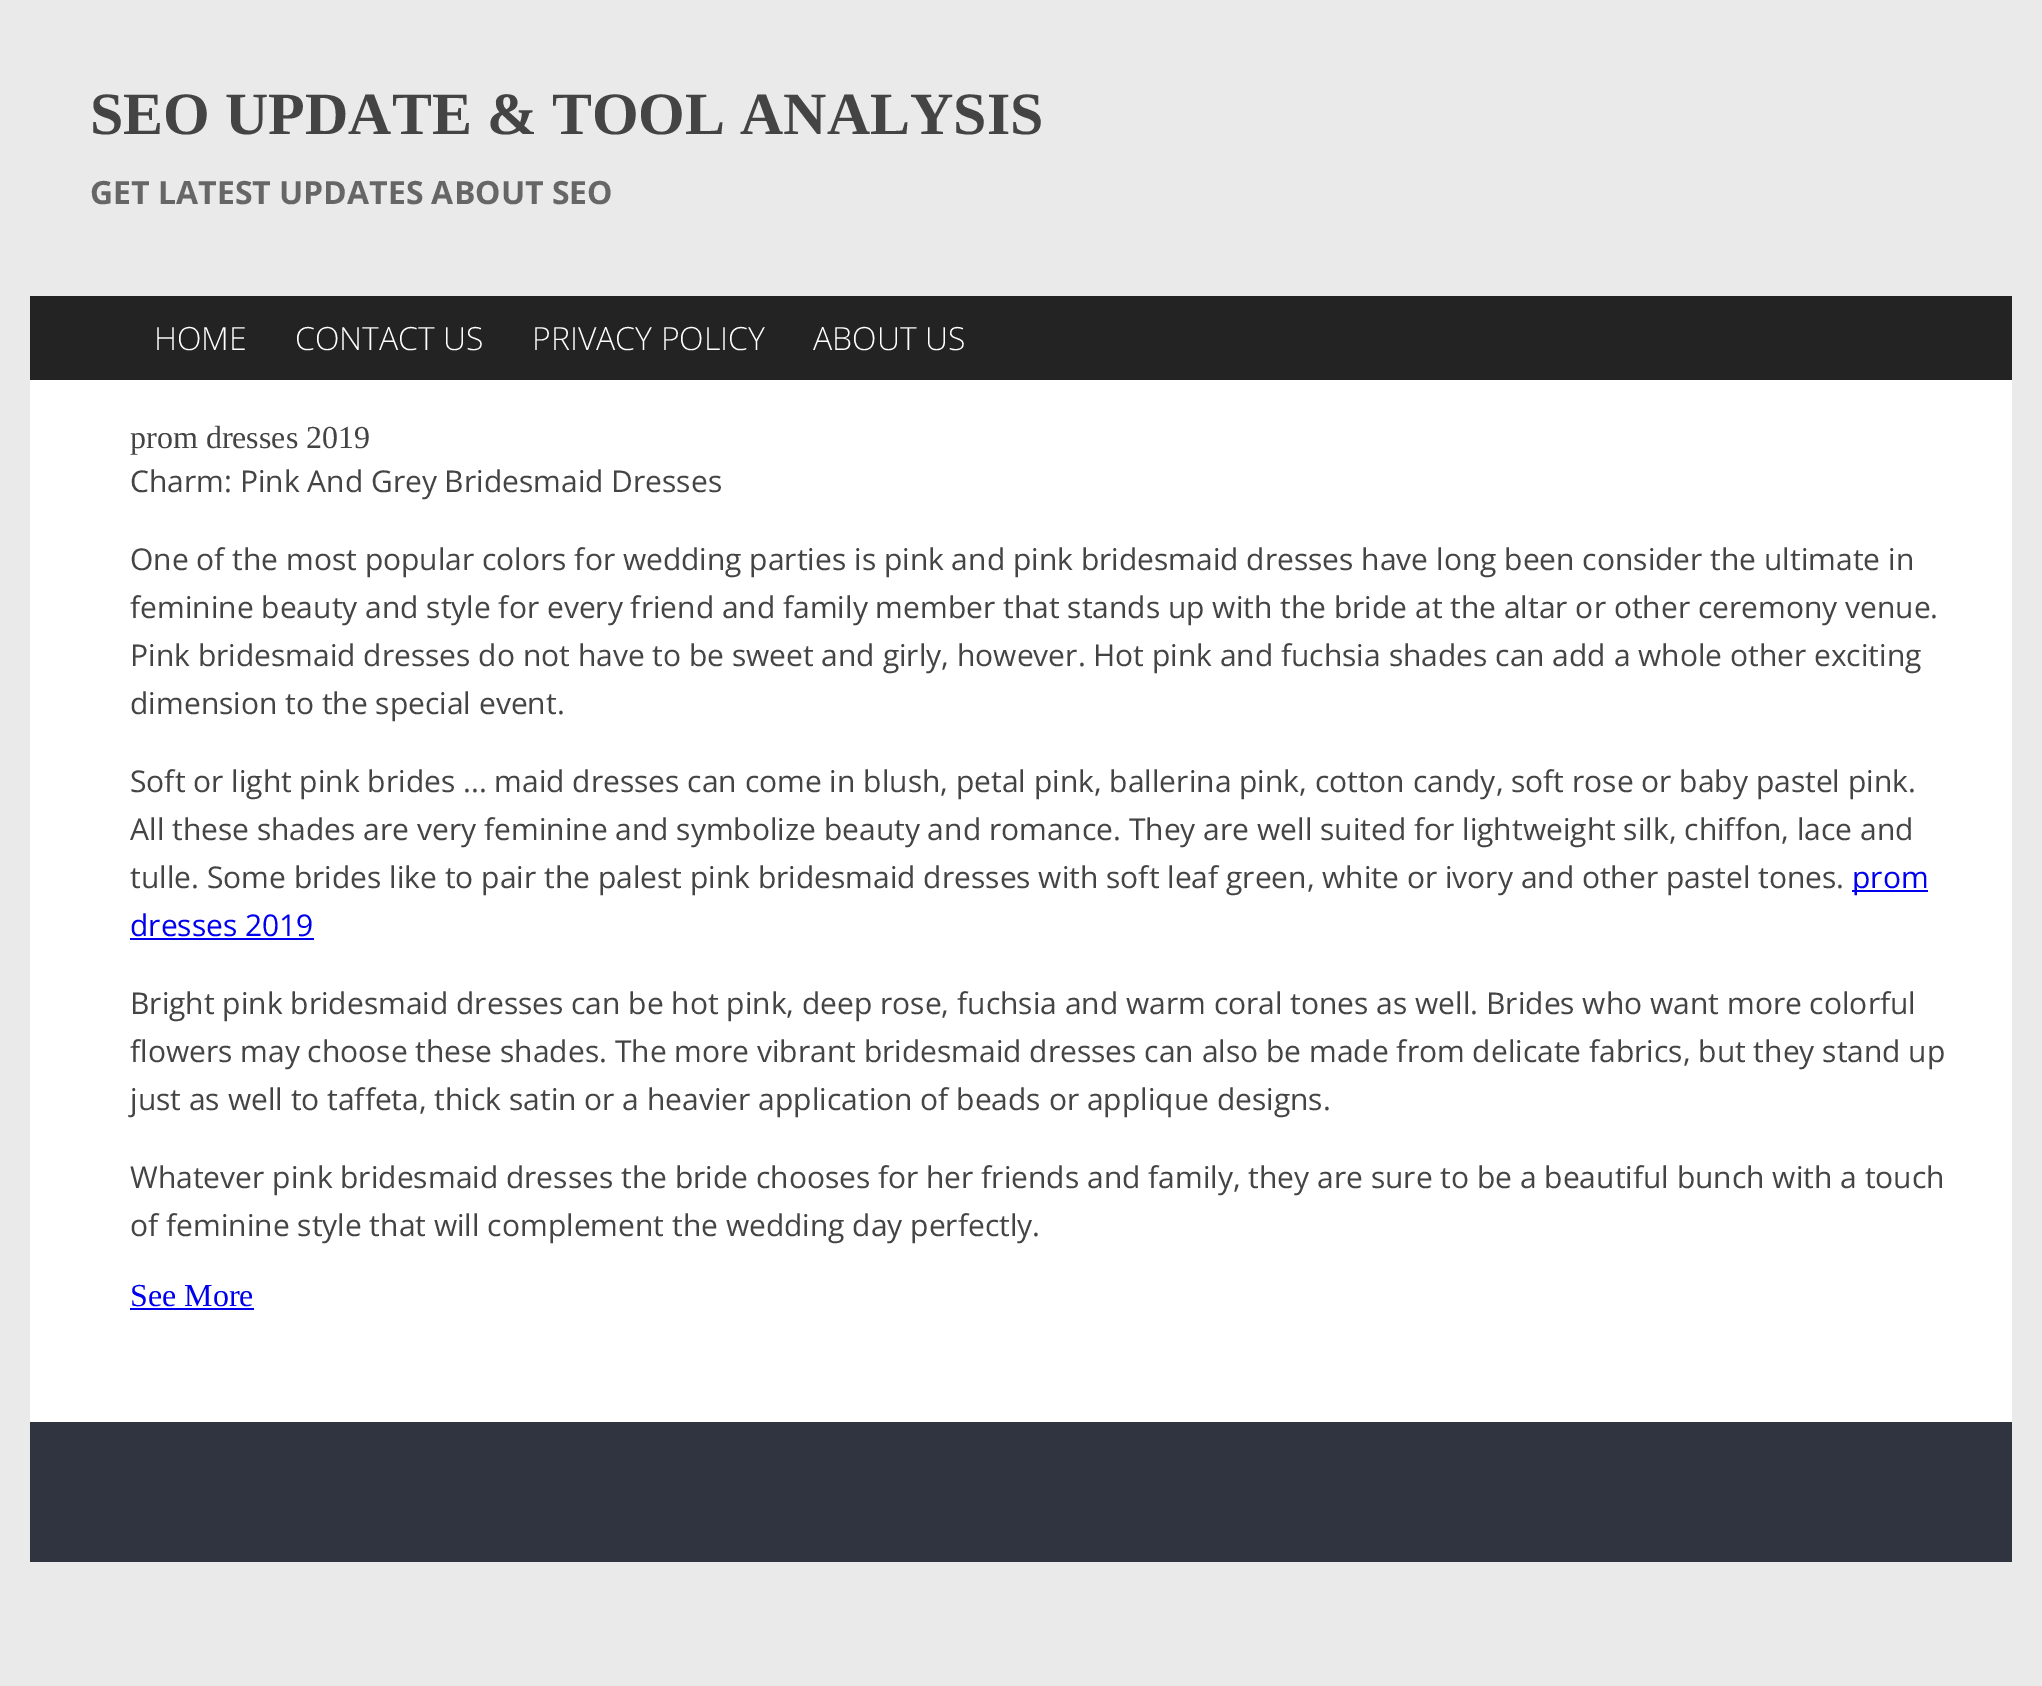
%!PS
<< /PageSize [2042 1686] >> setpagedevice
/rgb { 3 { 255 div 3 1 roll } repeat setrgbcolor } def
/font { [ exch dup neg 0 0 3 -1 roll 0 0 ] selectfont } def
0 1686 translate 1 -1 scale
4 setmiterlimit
234 234 234 rgb
0 0 2042 1686 rectfill
[
  [30 296 1982 84 35 35 35]
  [30 380 1982 1042 255 255 255]
  [1852 890 76 2 0 0 238]
  [130 938 184 2 0 0 238]
  [130 1308 124 2 0 0 238]
  [30 1422 1982 140 48 52 64]
] { aload pop rgb rectfill } forall
/LiberationSerif-Bold 60 font
68 68 68 rgb
90 134 moveto (SEO UPDATE & TOOL ANALYSIS) show
/OpenSans-Bold 32 font
102 102 102 rgb
90 204 moveto (GET LATEST UPDATES ABOUT SEO) show
/OpenSans-Light 32 font
255 255 255 rgb
[
  [(HOME) 154 350]
  [(CONTACT US) 295 350]
  [(PRIVACY POLICY) 532 350]
  [(ABOUT US) 813 350]
] { aload pop moveto show } forall
/LiberationSerif-Regular 32 font
68 68 68 rgb
130 448 moveto (prom dresses 2019) show
/OpenSans-Regular 30 font
[
  [(Charm: Pink And Grey Bridesmaid Dresses) 130 492]
  [(One of the most popular colors for wedding parties is pink and pink bridesmaid dresses have long been consider the ultimate in) 130 570]
  [(feminine beauty and style for every friend and family member that stands up with the bride at the altar or other ceremony venue.) 130 618]
  [(Pink bridesmaid dresses do not have to be sweet and girly, however. Hot pink and fuchsia shades can add a whole other exciting) 130 666]
  [(dimension to the special event.) 130 714]
  [(Soft or light pink brides ... maid dresses can come in blush, petal pink, ballerina pink, cotton candy, soft rose or baby pastel pink.) 130 792]
  [(All these shades are very feminine and symbolize beauty and romance. They are well suited for lightweight silk, chiffon, lace and) 130 840]
  [(tulle. Some brides like to pair the palest pink bridesmaid dresses with soft leaf green, white or ivory and other pastel tones.) 130 888]
] { aload pop moveto show } forall
0 0 238 rgb
1852 888 moveto (prom) show
130 936 moveto (dresses 2019) show
68 68 68 rgb
[
  [(Bright pink bridesmaid dresses can be hot pink, deep rose, fuchsia and warm coral tones as well. Brides who want more colorful) 130 1014]
  [(flowers may choose these shades. The more vibrant bridesmaid dresses can also be made from delicate fabrics, but they stand up) 130 1062]
  [(just as well to taffeta, thick satin or a heavier application of beads or applique designs.) 130 1110]
  [(Whatever pink bridesmaid dresses the bride chooses for her friends and family, they are sure to be a beautiful bunch with a touch) 130 1188]
  [(of feminine style that will complement the wedding day perfectly.) 130 1236]
] { aload pop moveto show } forall
/LiberationSerif-Regular 32 font
0 0 238 rgb
130 1306 moveto (See More) show
showpage
